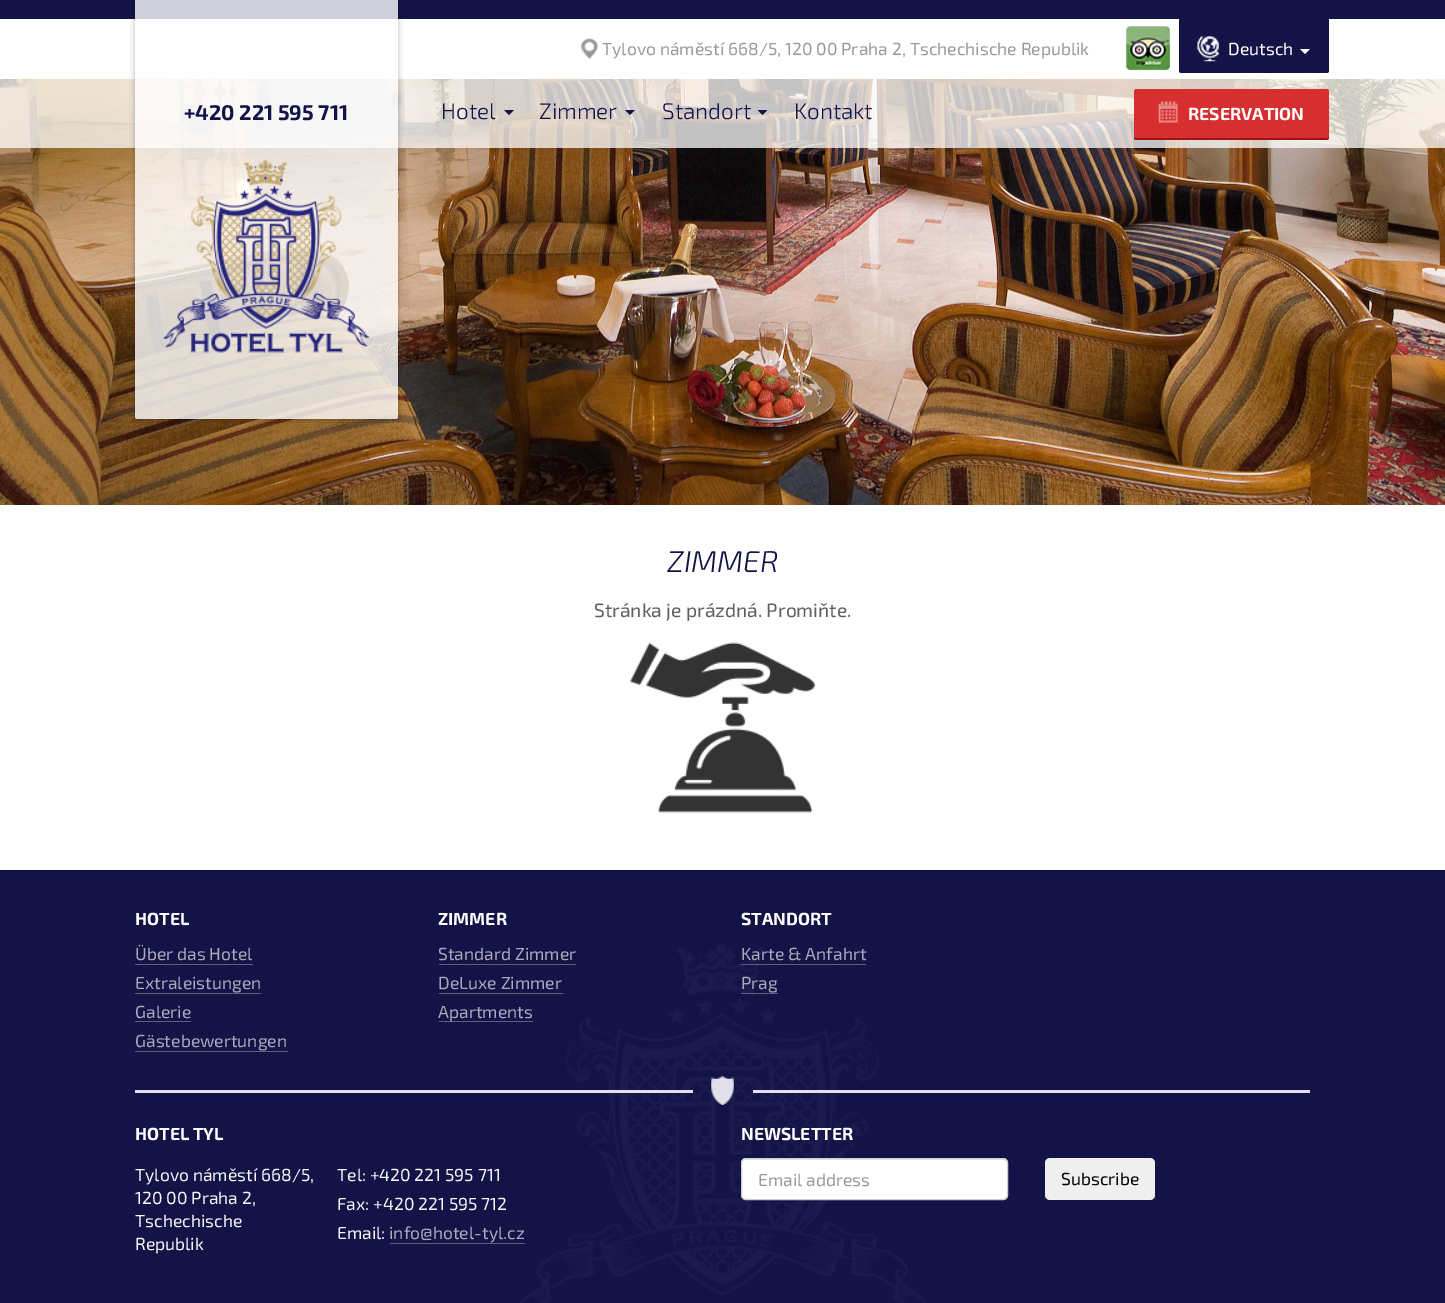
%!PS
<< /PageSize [1445 1303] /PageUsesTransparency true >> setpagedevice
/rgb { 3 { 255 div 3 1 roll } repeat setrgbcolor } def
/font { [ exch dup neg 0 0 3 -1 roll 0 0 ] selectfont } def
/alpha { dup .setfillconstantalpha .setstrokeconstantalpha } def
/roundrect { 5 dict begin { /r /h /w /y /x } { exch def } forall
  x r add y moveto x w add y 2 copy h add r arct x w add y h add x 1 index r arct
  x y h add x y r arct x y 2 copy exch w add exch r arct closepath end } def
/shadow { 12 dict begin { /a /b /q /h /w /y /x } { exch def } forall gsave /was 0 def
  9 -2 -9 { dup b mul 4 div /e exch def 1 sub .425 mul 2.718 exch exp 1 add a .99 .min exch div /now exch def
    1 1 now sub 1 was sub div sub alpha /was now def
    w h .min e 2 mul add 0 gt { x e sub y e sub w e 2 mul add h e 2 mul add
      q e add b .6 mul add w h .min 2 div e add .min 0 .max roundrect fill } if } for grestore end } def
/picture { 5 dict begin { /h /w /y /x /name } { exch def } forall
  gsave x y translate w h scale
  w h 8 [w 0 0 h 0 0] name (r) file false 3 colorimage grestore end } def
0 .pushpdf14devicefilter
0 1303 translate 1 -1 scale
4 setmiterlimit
255 255 255 rgb
0 0 1445 1303 rectfill
20 19 72 rgb
0 0 1445 19 rectfill
(img/1.rgb) 581 38 17 21 picture
(img/2.rgb) 1126 26 44 44 picture
1179 18 moveto 1329 18 lineto 1329 70.5 lineto 1329 72 1328 73 1326.5 73 curveto 1181.5 73 lineto 1180 73 1179 72 1179 70.5 curveto closepath fill
(img/3.rgb) 1197 36 22 26 picture
255 255 255 rgb
1300 49 moveto 1310 49 lineto 1305 54 lineto closepath fill
(img/6.rgb) 0 79 1445 426 picture
0.75 alpha
0 79 1445 69 rectfill
gsave
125 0 moveto 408 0 lineto 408 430 lineto 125 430 lineto closepath 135 -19 moveto 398 -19 lineto 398 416.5 lineto 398 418 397 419 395.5 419 curveto 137.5 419 lineto 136 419 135 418 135 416.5 curveto closepath eoclip newpath
1 alpha
0 0 0 rgb
135 -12 263 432 2.5 3 0.28 shadow
grestore
0.8 alpha
135 0 moveto 398 0 lineto 398 416.5 lineto 398 418 397 419 395.5 419 curveto 137.5 419 lineto 136 419 135 418 135 416.5 curveto closepath fill
1 alpha
(img/4.rgb) 163 160 206 193 picture
20 19 72 rgb
504 110 moveto 514 110 lineto 509 115 lineto closepath fill
625 110 moveto 635 110 lineto 630 115 lineto closepath fill
757.5 110 moveto 767.5 110 lineto 762.5 115 lineto closepath fill
157 20 20 rgb
1134 136 moveto 1134 138 lineto 1134 139 1135 140 1136 140 curveto 1326 140 lineto 1328 140 1329 139 1329 138 curveto 1329 92 lineto 1329 135 lineto 1329 136 1328 138 1326 138 curveto 1136 138 lineto 1135 138 1134 137 1134 136 curveto closepath fill
215 47 47 rgb
1134 89 195 49 2.5 roundrect fill
(img/5.rgb) 1158 101 20 22 picture
(img/7.rgb) 629 642 187 171 picture
20 19 72 rgb
0 870 1445 433 rectfill
(img/8.rgb) 520 943 407 360 picture
[
  [135 964 118 1 95 94 129]
  [135 993 126 1 95 94 129]
  [135 1021 56 1 95 94 129]
  [135 1051 153 1 95 94 129]
  [439 964 137 1 95 94 129]
  [439 993 124 1 95 94 129]
  [439 1021 94 1 95 94 129]
] { aload pop rgb rectfill } forall
0.5 alpha
[
  [741 964 125 1 169 169 186]
  [741 993 37 1 169 169 186]
] { aload pop rgb rectfill } forall
1 alpha
[
  [135 1090 558 3 225 224 234]
] { aload pop rgb rectfill } forall
(img/9.rgb) 711 1076 23 29 picture
753 1090 557 3 rectfill
95 94 129 rgb
390 1243 135 1 rectfill
255 255 255 rgb
741 1158 267 42 5 roundrect fill
236 236 236 rgb
746 1160 moveto 1002 1160 lineto 1005 1160 1006 1162 1006 1164 curveto 1006 1163 lineto 1006 1161 1004 1159 1002 1159 curveto 747 1159 lineto 746 1159 744 1160 744 1161 curveto closepath fill
204 204 204 rgb
741.5 1158.5 266 41 4.5 roundrect stroke
239 239 239 rgb
1045 1158 110 42 5 roundrect fill
/Exo2-Regular 17.5 font
153 153 153 rgb
602 55 moveto (Tylovo náměstí 668/5, 120 00 Praha 2, Tschechische Republik) show
255 255 255 rgb
1228 55 moveto (Deutsch) show
/Exo2-Bold 21.25 font
20 19 72 rgb
184 120 moveto (+420 221 595 711) show
/Exo2-Light 22.5 font
[
  [(Hotel) 441 119]
  [(Zimmer) 539 119]
  [(Standort) 662 119]
  [(Kontakt) 794 119]
] { aload pop moveto show } forall
/Exo2-Bold 17.5 font
255 255 255 rgb
1188 120 moveto (RESERVATION) show
/Exo2-LightItalic 30 font
20 19 72 rgb
667 572 moveto (ZIMMER) show
/Exo2-Regular 19.25 font
95 95 95 rgb
594 617 moveto (Stránka je prázdná. Promiňte.) show
/Exo2-Bold 17.5 font
255 255 255 rgb
135 925 moveto (HOTEL) show
/Exo2-Regular 17.5 font
169 169 186 rgb
[
  [(Über das Hotel) 135 960]
  [(Extraleistungen) 135 989]
  [(Galerie) 135 1018]
  [(Gästebewertungen) 135 1047]
] { aload pop moveto show } forall
/Exo2-Bold 17.5 font
255 255 255 rgb
438 925 moveto (ZIMMER) show
/Exo2-Regular 17.5 font
169 169 186 rgb
[
  [(Standard Zimmer) 438 960]
  [(DeLuxe Zimmer) 438 989]
  [(Apartments) 438 1018]
] { aload pop moveto show } forall
/Exo2-Bold 17.5 font
255 255 255 rgb
741 925 moveto (STANDORT) show
/Exo2-Regular 17.5 font
169 169 186 rgb
741 960 moveto (Karte & Anfahrt) show
741 989 moveto (Prag) show
/Exo2-Bold 17.5 font
255 255 255 rgb
135 1140 moveto (HOTEL TYL) show
/Exo2-Regular 17.5 font
245 245 245 rgb
[
  [(Tylovo náměstí 668/5,) 135 1181]
  [(120 00 Praha 2,) 135 1204]
  [(Tschechische) 135 1227]
  [(Republik) 135 1250]
  [(Tel: +420 221 595 711) 337 1181]
  [(Fax: +420 221 595 712) 337 1210]
  [(Email:) 337 1239]
] { aload pop moveto show } forall
169 169 186 rgb
389 1239 moveto (info@hotel-tyl.cz) show
/Exo2-Bold 17.5 font
255 255 255 rgb
741 1140 moveto (NEWSLETTER) show
/Exo2-Regular 17.5 font
153 153 153 rgb
758 1186 moveto (Email address) show
0 0 0 rgb
1061 1185 moveto (Subscribe) show
.poppdf14devicefilter showpage
